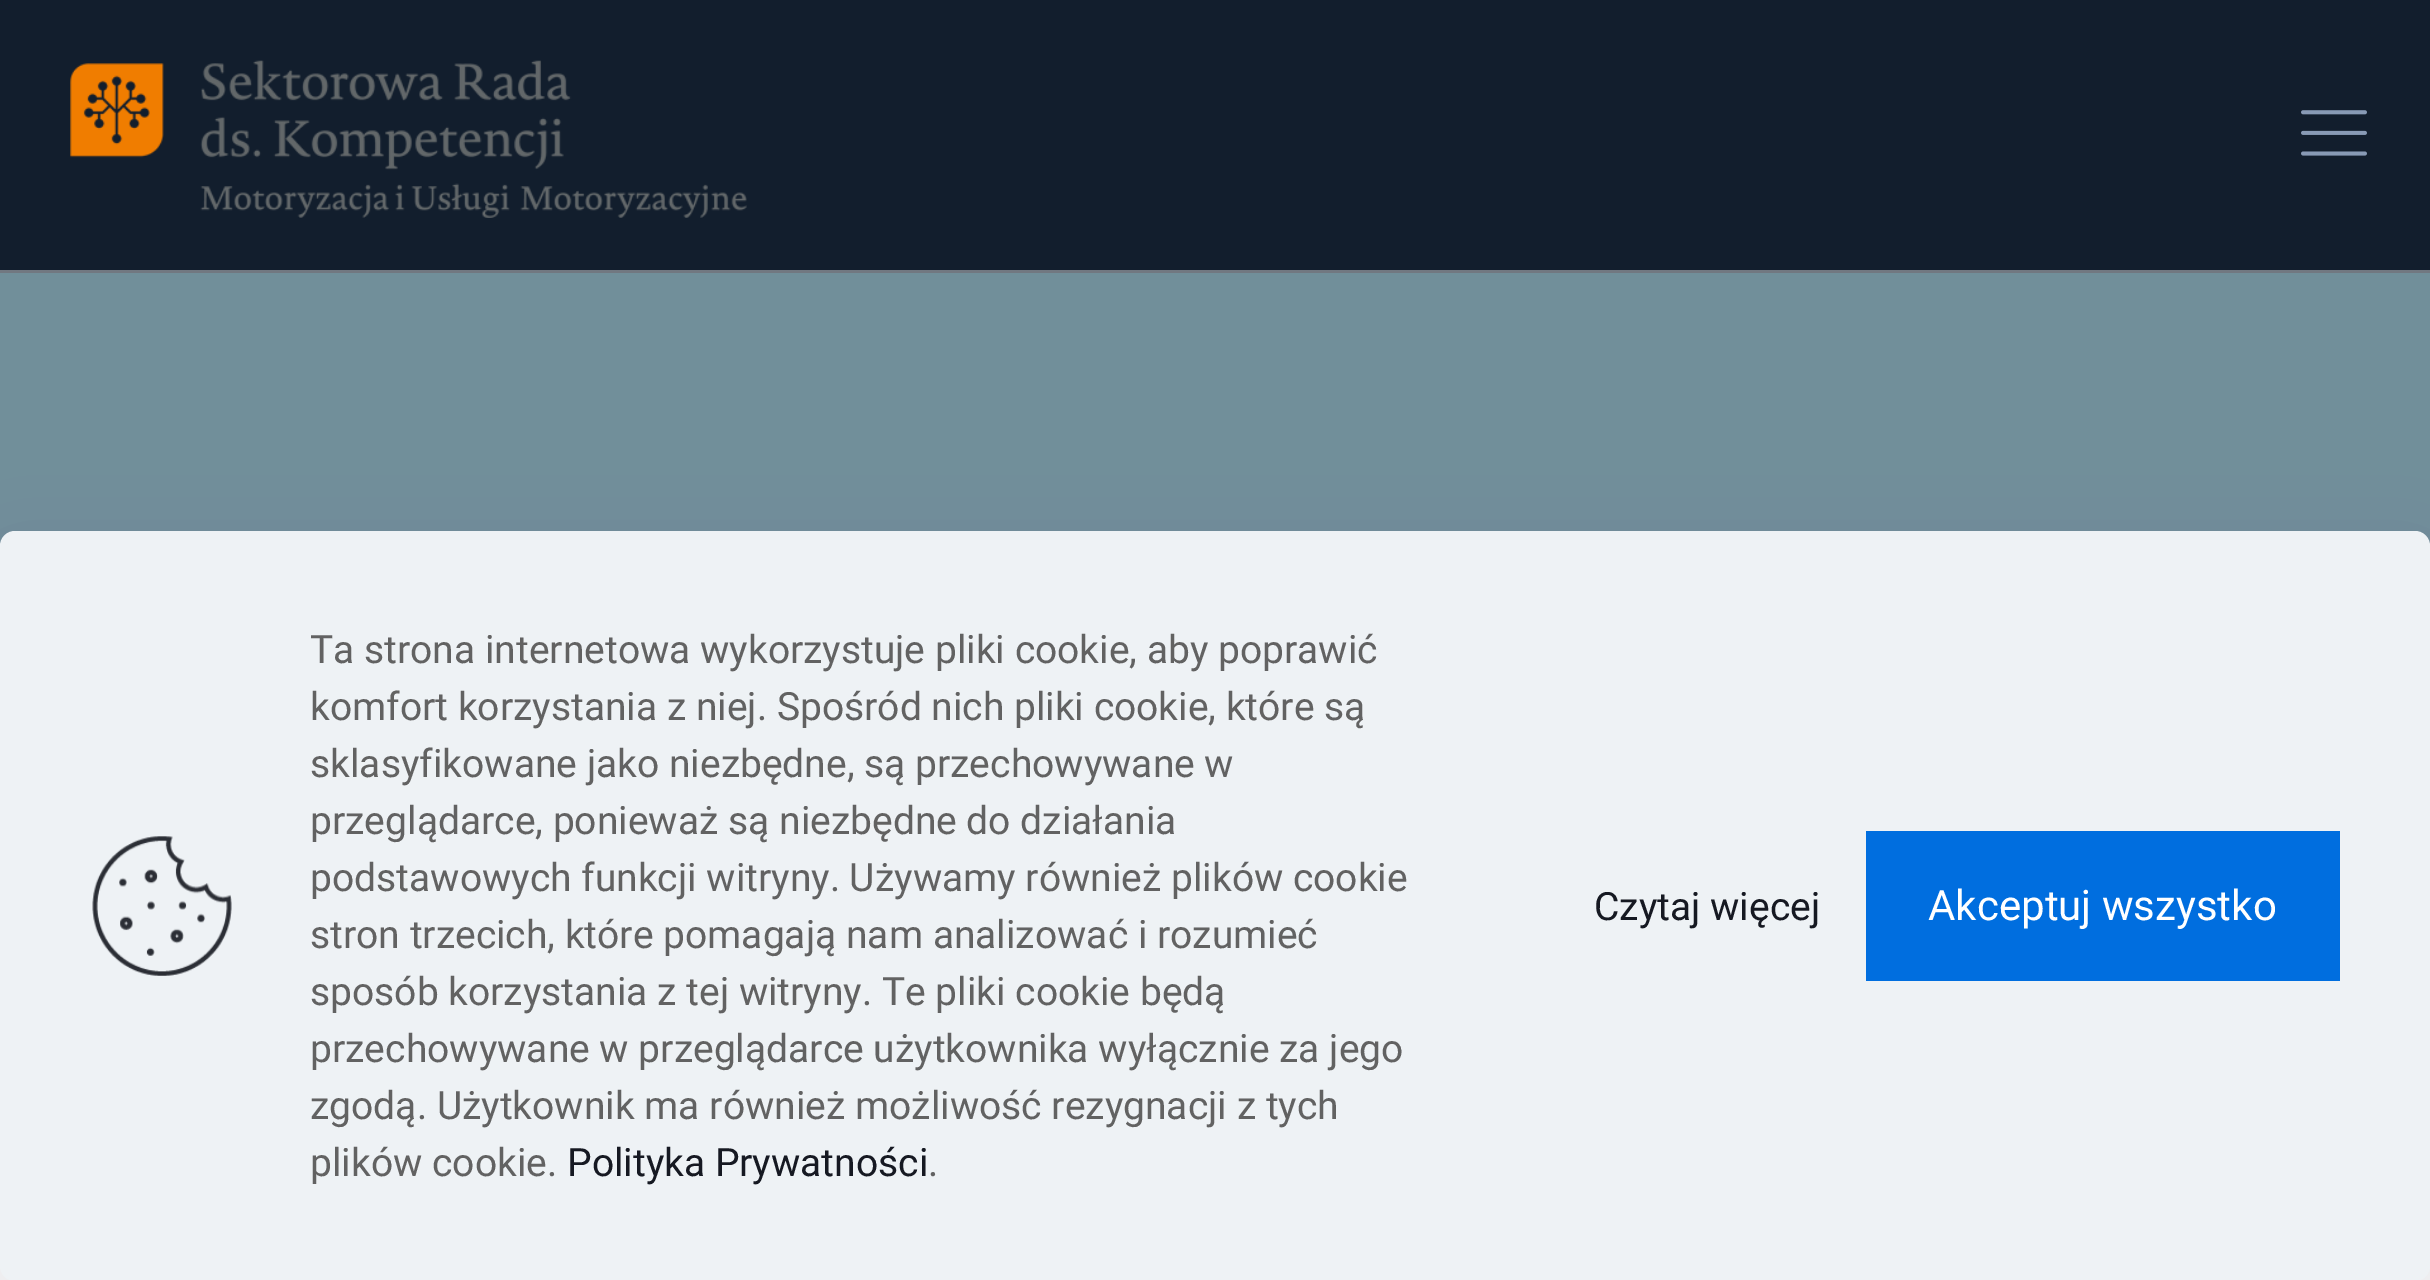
%!PS
<< /PageSize [2430 1280] /PageUsesTransparency true >> setpagedevice
/rgb { 3 { 255 div 3 1 roll } repeat setrgbcolor } def
/font { [ exch dup neg 0 0 3 -1 roll 0 0 ] selectfont } def
/alpha { dup .setfillconstantalpha .setstrokeconstantalpha } def
/roundrect { 5 dict begin { /r /h /w /y /x } { exch def } forall
  x r add y moveto x w add y 2 copy h add r arct x w add y h add x 1 index r arct
  x y h add x y r arct x y 2 copy exch w add exch r arct closepath end } def
/shadow { 12 dict begin { /a /b /q /h /w /y /x } { exch def } forall gsave /was 0 def
  9 -2 -9 { dup b mul 4 div /e exch def 1 sub .425 mul 2.718 exch exp 1 add a .99 .min exch div /now exch def
    1 1 now sub 1 was sub div sub alpha /was now def
    w h .min e 2 mul add 0 gt { x e sub y e sub w e 2 mul add h e 2 mul add
      q e add b .6 mul add w h .min 2 div e add .min 0 .max roundrect fill } if } for grestore end } def
/picture { 5 dict begin { /h /w /y /x /name } { exch def } forall
  gsave x y translate w h scale
  w h 8 [w 0 0 h 0 0] name (r) file false 3 colorimage grestore end } def
0 .pushpdf14devicefilter
0 1280 translate 1 -1 scale
4 setmiterlimit
255 255 255 rgb
0 0 2430 1280 rectfill
[
  [0 273 2430 273 113 143 154]
  [0 0 2430 270 18 30 45]
  [0 270 2430 3 113 120 129]
] { aload pop rgb rectfill } forall
(img/1.rgb) 70 60 677 158 picture
(img/2.rgb) 2301 110 66 46 picture
1 7 39 rgb
0 576 2430 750 15 45 0.13 shadow
238 242 245 rgb
0 531 2430 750 15 roundrect fill
(img/3.rgb) 92 836 140 140 picture
0 110 223 rgb
1866 831 474 150 rectfill
/Roboto-Regular 39 font
98 98 98 rgb
[
  [(Ta strona internetowa wykorzystuje pliki cookie, aby poprawić) 310 663]
  [(komfort korzystania z niej. Spośród nich pliki cookie, które są) 310 720]
  [(sklasyfikowane jako niezbędne, są przechowywane w) 310 777]
  [(przeglądarce, ponieważ są niezbędne do działania) 310 834]
  [(podstawowych funkcji witryny. Używamy również plików cookie) 310 891]
  [(stron trzecich, które pomagają nam analizować i rozumieć) 310 948]
  [(sposób korzystania z tej witryny. Te pliki cookie będą) 310 1005]
  [(przechowywane w przeglądarce użytkownika wyłącznie za jego) 310 1062]
  [(zgodą. Użytkownik ma również możliwość rezygnacji z tych) 310 1119]
  [(plików cookie.) 310 1176]
] { aload pop moveto show } forall
22 25 34 rgb
567 1176 moveto (Polityka Prywatności) show
98 98 98 rgb
928 1176 moveto (.) show
22 25 34 rgb
1594 920 moveto (Czytaj więcej) show
/Roboto-Regular 42 font
255 255 255 rgb
1928 920 moveto (Akceptuj wszystko) show
.poppdf14devicefilter showpage
